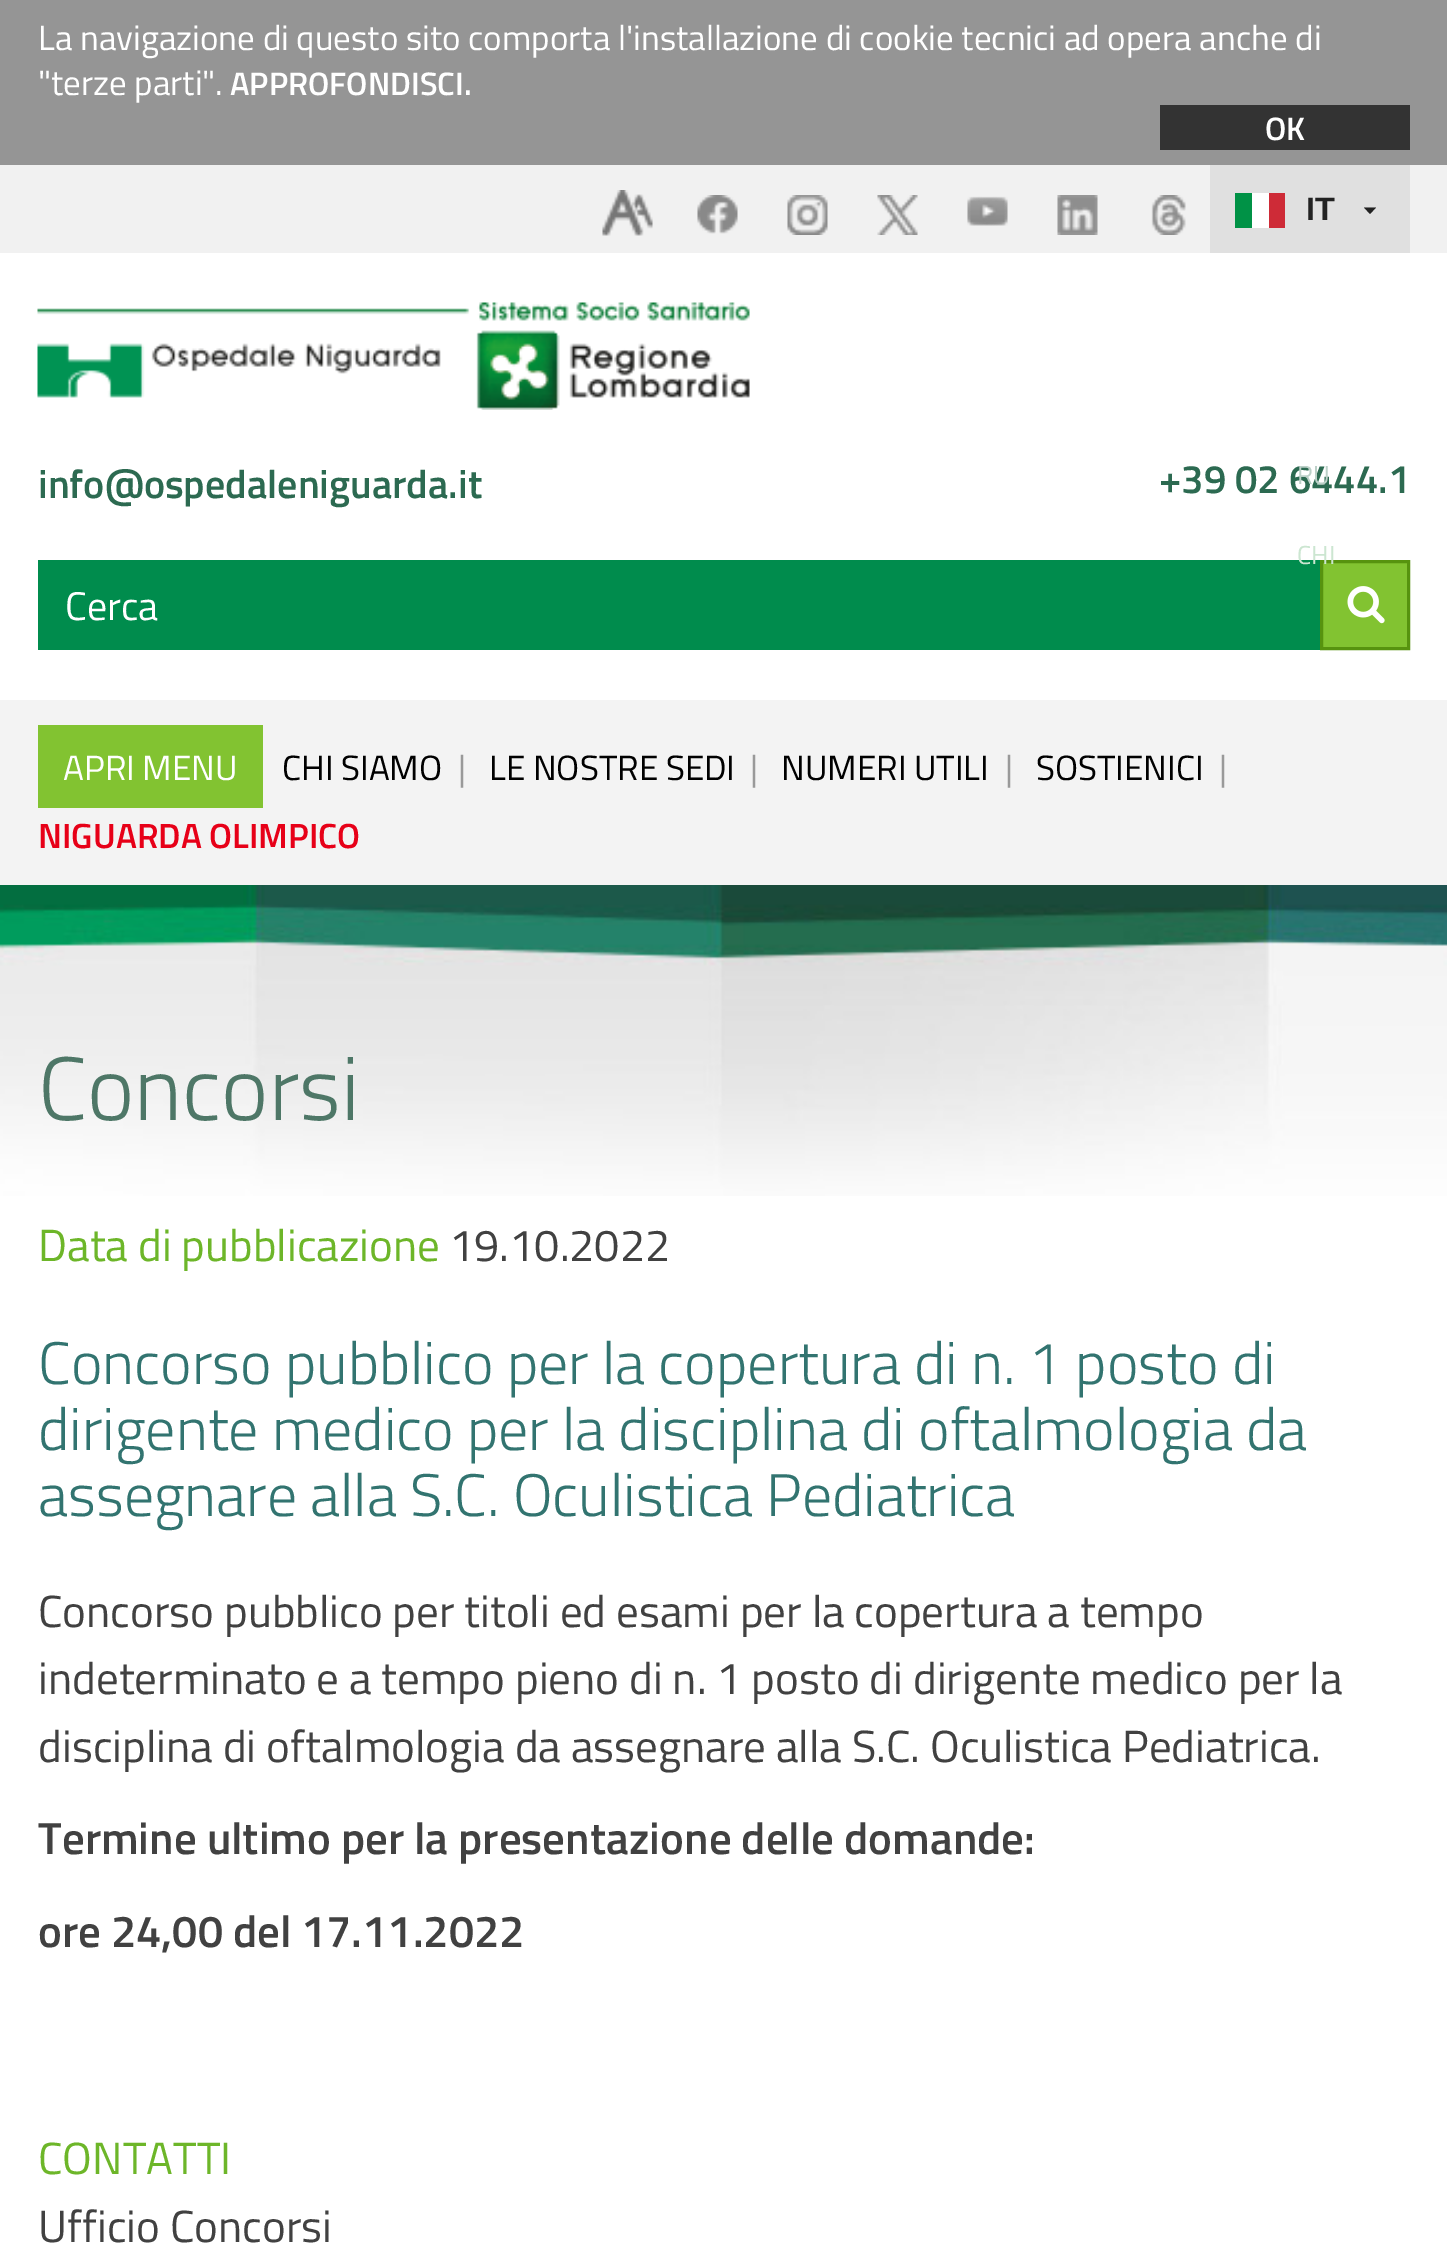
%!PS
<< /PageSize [1447 2255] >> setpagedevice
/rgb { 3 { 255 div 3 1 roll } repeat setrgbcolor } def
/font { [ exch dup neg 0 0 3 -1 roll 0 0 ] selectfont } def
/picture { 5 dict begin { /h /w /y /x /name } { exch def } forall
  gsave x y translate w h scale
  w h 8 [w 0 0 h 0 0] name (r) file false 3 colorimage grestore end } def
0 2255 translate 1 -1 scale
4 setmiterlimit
255 255 255 rgb
0 0 1447 2255 rectfill
[
  [0 0 1447 165 149 149 149]
  [1160 105 250 45 51 51 51]
  [0 165 1447 88 241 241 241]
] { aload pop rgb rectfill } forall
(img/1.rgb) 602 190 51 46 picture
(img/2.rgb) 697 195 41 39 picture
(img/3.rgb) 787 195 41 40 picture
(img/4.rgb) 877 195 41 40 picture
(img/5.rgb) 967 196 41 30 picture
(img/6.rgb) 1057 195 41 40 picture
(img/7.rgb) 1151 195 35 40 picture
[
  [1210 165 200 88 224 224 224]
  [1252 193 17 35 255 255 255]
  [1235 193 17 35 0 146 70]
  [1269 193 16 35 206 43 55]
] { aload pop rgb rectfill } forall
34 34 34 rgb
1364 207.5 moveto 1370 214 lineto 1376 207.5 lineto closepath fill
(img/8.rgb) 37 302 713 108 picture
0 140 77 rgb
38 560 1282 90 rectfill
130 195 49 rgb
1321.5 561.5 moveto 1408.5 561.5 lineto 1408.5 648.5 lineto 1321.5 648.5 lineto closepath gsave fill grestore
87 147 15 rgb
3 setlinewidth
stroke
(img/9.rgb) 1347 586 38 38 picture
243 243 243 rgb
0 700 1447 185 rectfill
130 195 49 rgb
38 725 225 83 rectfill
(img/10.rgb) 0 885 1447 311 picture
/TitilliumWeb-Regular 35 font
255 255 255 rgb
38 50 moveto (La navigazione di questo sito comporta l'installazione di cookie tecnici ad opera anche di) show
38 95 moveto ("terze parti".) show
/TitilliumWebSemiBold-SemiBold 32.5 font
230 95 moveto (APPROFONDISCI.) show
1265 140 moveto (OK) show
/LiberationSans-Bold 32.5 font
34 34 34 rgb
1306 220 moveto (IT) show
/TitilliumWeb-Regular 26 font
204 230 209 rgb
1297 564 moveto (CHI) show
/TitilliumWebSemiBold-SemiBold 40 font
44 106 81 rgb
38 498 moveto (info@ospedaleniguarda.it) show
1159 493 moveto (+39 02 6444.1) show
/TitilliumWeb-Regular 26 font
188 208 200 rgb
1297 484 moveto (RU) show
/TitilliumWeb-Regular 40 font
255 255 255 rgb
65 620 moveto (Cerca) show
/TitilliumWeb-Regular 35 font
63 780 moveto (APRI MENU) show
0 0 0 rgb
282 780 moveto (CHI SIAMO) show
153 153 153 rgb
458 780 moveto (|) show
0 0 0 rgb
489 780 moveto (LE NOSTRE SEDI) show
153 153 153 rgb
750 780 moveto (|) show
0 0 0 rgb
781 780 moveto (NUMERI UTILI) show
153 153 153 rgb
1005 780 moveto (|) show
0 0 0 rgb
1036 780 moveto (SOSTIENICI) show
153 153 153 rgb
1219 780 moveto (|) show
/TitilliumWebSemiBold-SemiBold 35 font
231 0 24 rgb
38 848 moveto (NIGUARDA OLIMPICO) show
/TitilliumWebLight-Light 90 font
78 119 103 rgb
38 1120 moveto (Concorsi) show
/TitilliumWeb-Regular 45 font
109 182 41 rgb
38 1261 moveto (Data di pubblicazione) show
65 65 65 rgb
449 1261 moveto (19.10.2022) show
/TitilliumWebLight-Light 60 font
50 116 112 rgb
[
  [(Concorso pubblico per la copertura di n. 1 posto di) 38 1384]
  [(dirigente medico per la disciplina di oftalmologia da) 38 1450]
  [(assegnare alla S.C. Oculistica Pediatrica) 38 1516]
] { aload pop moveto show } forall
/TitilliumWeb-Regular 45 font
65 65 65 rgb
[
  [(Concorso pubblico per titoli ed esami per la copertura a tempo) 38 1627]
  [(indeterminato e a tempo pieno di n. 1 posto di dirigente medico per la) 38 1694]
  [(disciplina di oftalmologia da assegnare alla S.C. Oculistica Pediatrica.) 38 1762]
] { aload pop moveto show } forall
/TitilliumWebSemiBold-SemiBold 45 font
38 1854 moveto (Termine ultimo per la presentazione delle domande:) show
38 1947 moveto (ore 24,00 del 17.11.2022) show
/TitilliumWeb-Regular 45 font
109 182 41 rgb
38 2174 moveto (CONTATTI) show
65 65 65 rgb
38 2242 moveto (Ufficio Concorsi) show
showpage
